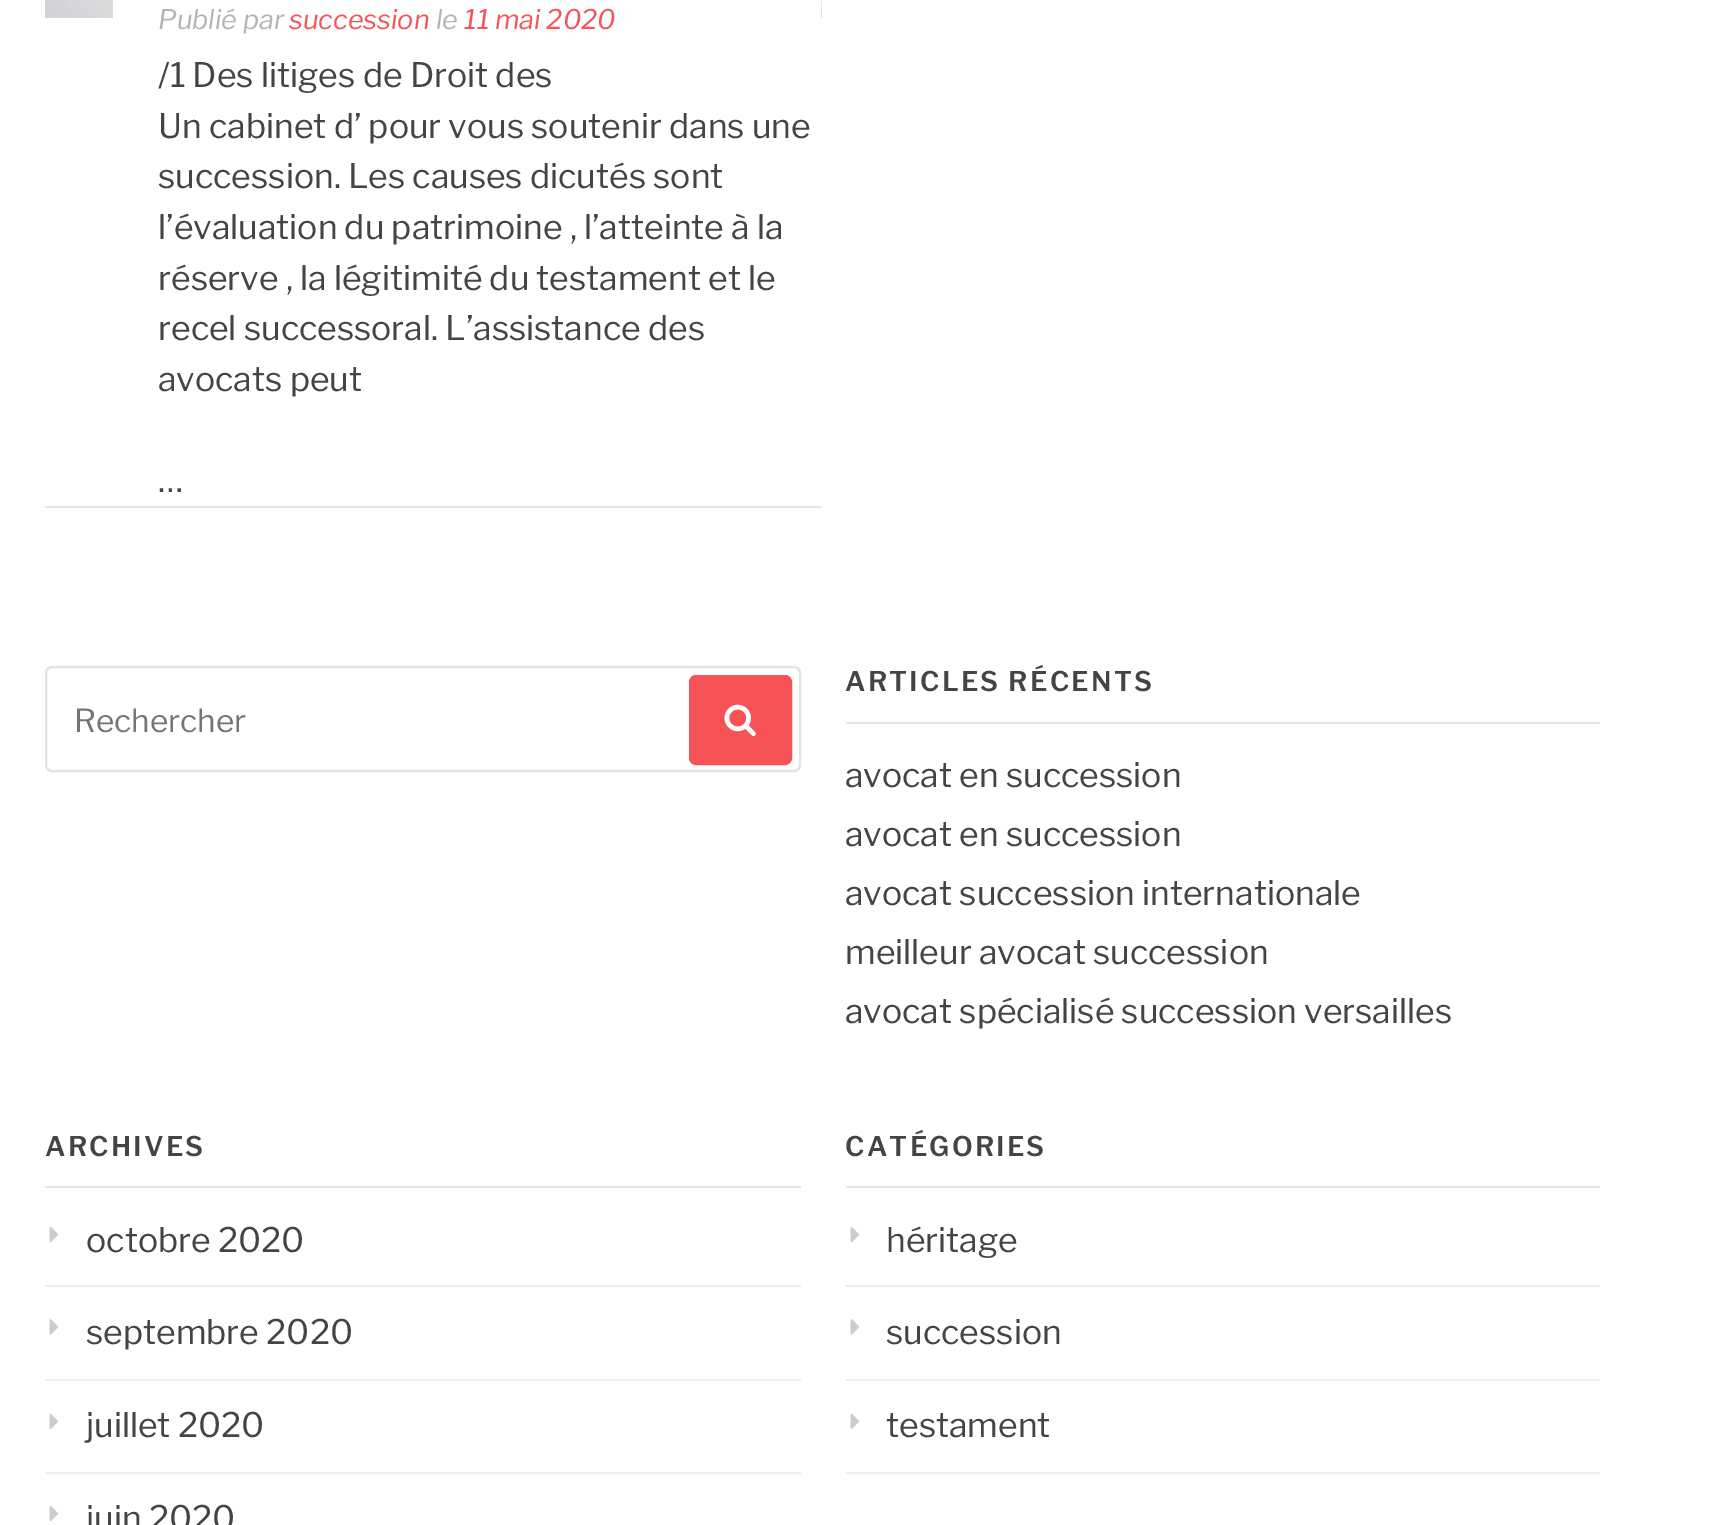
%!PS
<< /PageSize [1722 1525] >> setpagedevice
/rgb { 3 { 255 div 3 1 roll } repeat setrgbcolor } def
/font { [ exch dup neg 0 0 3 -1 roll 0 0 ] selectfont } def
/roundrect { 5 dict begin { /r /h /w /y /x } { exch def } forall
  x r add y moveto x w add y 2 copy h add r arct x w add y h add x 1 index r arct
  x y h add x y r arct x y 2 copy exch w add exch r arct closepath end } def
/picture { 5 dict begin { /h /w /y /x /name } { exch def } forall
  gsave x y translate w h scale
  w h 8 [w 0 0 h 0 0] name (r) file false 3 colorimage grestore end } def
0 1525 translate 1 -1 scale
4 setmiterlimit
255 255 255 rgb
0 0 1722 1525 rectfill
229 229 229 rgb
45 506 776 2 rectfill
(img/1.rgb) 45 0 777 18 picture
255 255 255 rgb
113 0 708 18 rectfill
227 227 227 rgb
2 setlinewidth
46 667 754 104 6 roundrect stroke
247 83 87 rgb
690 676 101 88 6 roundrect gsave fill grestore
stroke
(img/2.rgb) 724 704 32 33 picture
[
  [846 722 754 2 229 229 229]
  [45 1186 756 2 229 229 229]
  [45 1285 756 2 238 238 238]
] { aload pop rgb rectfill } forall
(img/3.rgb) 49 1227 10 16 picture
45 1379 756 2 rectfill
(img/4.rgb) 49 1319 10 16 picture
45 1472 756 2 rectfill
(img/5.rgb) 49 1413 10 16 picture
(img/3.rgb) 49 1506 10 16 picture
229 229 229 rgb
846 1186 754 2 rectfill
238 238 238 rgb
846 1285 754 2 rectfill
(img/3.rgb) 850 1227 10 16 picture
846 1379 754 2 rectfill
(img/4.rgb) 850 1319 10 16 picture
846 1472 754 2 rectfill
(img/5.rgb) 850 1413 10 16 picture
/LibreFranklin-Italic 27 font
180 180 180 rgb
158 29 moveto (Publié par) show
247 83 87 rgb
289 29 moveto (succession) show
180 180 180 rgb
436 29 moveto (le) show
247 83 87 rgb
464 29 moveto (11 mai 2020) show
/LibreFranklin-Regular 33.75 font
68 68 68 rgb
[
  [(/1 Des litiges de Droit des) 158 87]
  [(Un cabinet d’ pour vous soutenir dans une) 158 138]
  [(succession. Les causes dicutés sont) 158 188]
  [(l’évaluation du patrimoine , l’atteinte à la) 158 239]
  [(réserve , la légitimité du testament et le) 158 290]
  [(recel successoral. L’assistance des) 158 340]
  [(avocats peut) 158 391]
  [(…) 158 492]
] { aload pop moveto show } forall
/LibreFranklin-Regular 31.5 font
117 117 117 rgb
74 732 moveto (Rechercher) show
/LibreFranklin-SemiBold 27 font
68 68 68 rgb
845 691 moveto 2.25 0 (ARTICLES RÉCENTS) ashow
/LibreFranklin-Regular 33.75 font
[
  [(avocat en succession) 845 787]
  [(avocat en succession) 845 846]
  [(avocat succession internationale) 845 905]
  [(meilleur avocat succession) 845 964]
  [(avocat spécialisé succession versailles) 845 1023]
] { aload pop moveto show } forall
/LibreFranklin-SemiBold 27 font
45 1156 moveto 2.25 0 (ARCHIVES) ashow
/LibreFranklin-Regular 33.75 font
[
  [(octobre 2020) 86 1252]
  [(septembre 2020) 86 1344]
  [(juillet 2020) 86 1437]
  [(juin 2020) 86 1530]
] { aload pop moveto show } forall
/LibreFranklin-SemiBold 27 font
845 1156 moveto 2.25 0 (CATÉGORIES) ashow
/LibreFranklin-Regular 33.75 font
[
  [(héritage) 886 1252]
  [(succession) 886 1344]
  [(testament) 886 1437]
] { aload pop moveto show } forall
showpage
